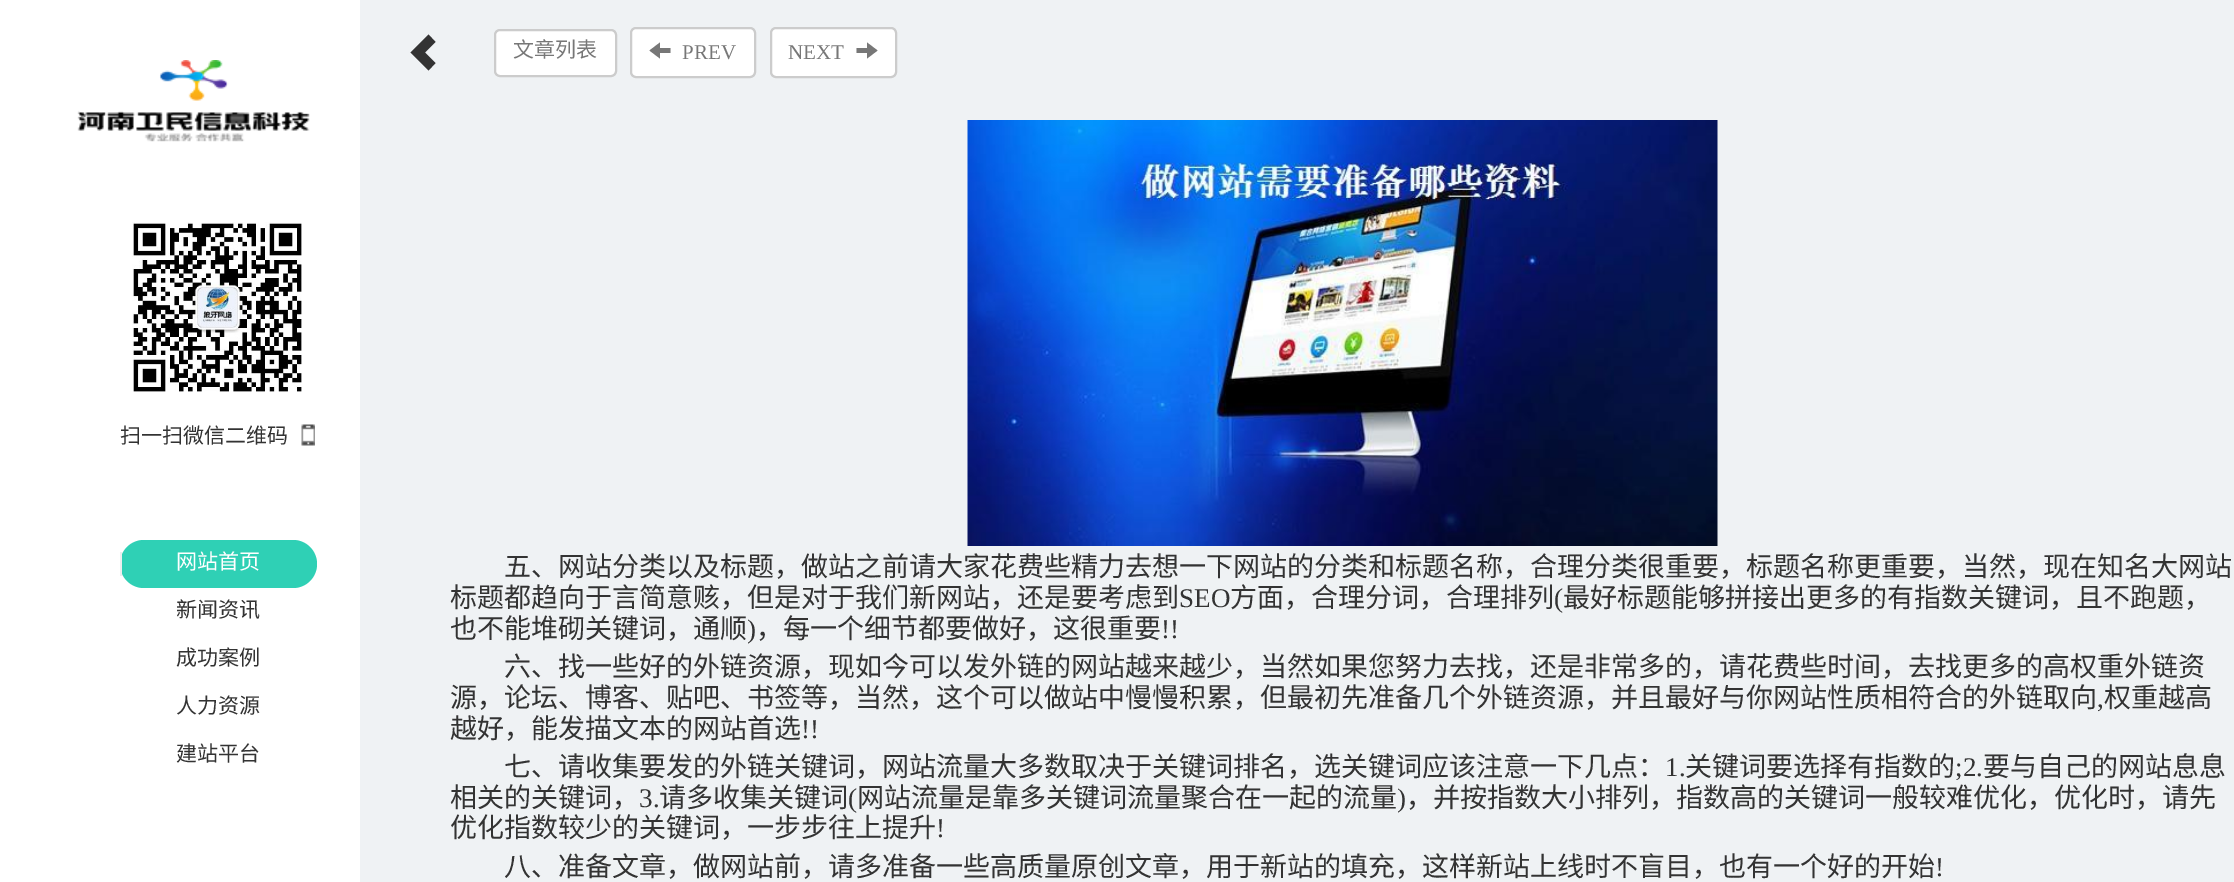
%!PS
<< /PageSize [2234 882] >> setpagedevice
/rgb { 3 { 255 div 3 1 roll } repeat setrgbcolor } def
/font { [ exch dup neg 0 0 3 -1 roll 0 0 ] selectfont } def
/roundrect { 5 dict begin { /r /h /w /y /x } { exch def } forall
  x r add y moveto x w add y 2 copy h add r arct x w add y h add x 1 index r arct
  x y h add x y r arct x y 2 copy exch w add exch r arct closepath end } def
/picture { 5 dict begin { /h /w /y /x /name } { exch def } forall
  gsave x y translate w h scale
  w h 8 [w 0 0 h 0 0] name (r) file false 3 colorimage grestore end } def
0 882 translate 1 -1 scale
4 setmiterlimit
239 242 244 rgb
0 0 2234 882 rectfill
51 51 51 rgb
410.5 52.5 moveto 428.5 70.5 lineto 435.5 63 lineto 425 52.5 lineto 435.5 42 lineto 428.5 34.5 lineto closepath fill
255 255 255 rgb
495 30 121 46 5 roundrect gsave fill grestore
204 204 204 rgb
2 setlinewidth
stroke
255 255 255 rgb
631 28 124 49 5 roundrect gsave fill grestore
204 204 204 rgb
stroke
119 119 119 rgb
649.5 50.5 moveto 660 42.5 lineto 660 48 lineto 670.5 48 lineto 670.5 53 lineto 660 53 lineto 660 58.5 lineto closepath fill
255 255 255 rgb
771 28 125 49 5 roundrect gsave fill grestore
204 204 204 rgb
stroke
119 119 119 rgb
856.5 53 moveto 856.5 48 lineto 867 48 lineto 867 42.5 lineto 877.5 50.5 lineto 867 58.5 lineto 867 53 lineto closepath fill
255 255 255 rgb
0 0 360 882 rectfill
(img/1.rgb) 77 60 233 82 picture
(img/2.rgb) 132 222 170 170 picture
(img/3.rgb) 301 424 14 22 picture
47 208 181 rgb
120 540 197 48 24 roundrect fill
238 238 238 rgb
120 552 2 24 rectfill
(img/4.rgb) 967 120 751 426 picture
/NotoSansCJKSC-Regular 21 font
119 119 119 rgb
513 57 moveto (文章列表) show
/LiberationSerif-Regular 21 font
682 59 moveto (PREV) show
788 59 moveto (NEXT) show
/NotoSansCJKSC-Regular 21 font
51 51 51 rgb
120 443 moveto (扫一扫微信二维码) show
255 255 255 rgb
176 569 moveto (网站首页) show
51 51 51 rgb
[
  [(新闻资讯) 176 617]
  [(成功案例) 176 665]
  [(人力资源) 176 713]
  [(建站平台) 176 761]
] { aload pop moveto show } forall
/NotoSansCJKSC-Regular 27 font
504 576 moveto (五、网站分类以及标题，做站之前请大家花费些精力去想一下网站的分类和标题名称，合理分类很重要，标题名称更重要，当然，现在知名大网站) show
450 607 moveto (标题都趋向于言简意赅，但是对于我们新网站，还是要考虑到) show
/LiberationSerif-Regular 27 font
1179 607 moveto (SEO) show
/NotoSansCJKSC-Regular 27 font
1230 607 moveto (方面，合理分词，合理排列) show
/LiberationSerif-Regular 27 font
1554 607 moveto (\() show
/NotoSansCJKSC-Regular 27 font
1563 607 moveto (最好标题能够拼接出更多的有指数关键词，且不跑题，) show
450 638 moveto (也不能堆砌关键词，通顺) show
/LiberationSerif-Regular 27 font
747 638 moveto (\)) show
/NotoSansCJKSC-Regular 27 font
756 638 moveto (，每一个细节都要做好，这很重要) show
/LiberationSerif-Regular 27 font
1161 638 moveto (!!) show
/NotoSansCJKSC-Regular 27 font
504 676 moveto (六、找一些好的外链资源，现如今可以发外链的网站越来越少，当然如果您努力去找，还是非常多的，请花费些时间，去找更多的高权重外链资) show
450 707 moveto (源，论坛、博客、贴吧、书签等，当然，这个可以做站中慢慢积累，但最初先准备几个外链资源，并且最好与你网站性质相符合的外链取向) show
/LiberationSerif-Regular 27 font
2097 707 moveto (,) show
/NotoSansCJKSC-Regular 27 font
2104 707 moveto (权重越高) show
450 738 moveto (越好，能发描文本的网站首选) show
/LiberationSerif-Regular 27 font
801 738 moveto (!!) show
/NotoSansCJKSC-Regular 27 font
504 776 moveto (七、请收集要发的外链关键词，网站流量大多数取决于关键词排名，选关键词应该注意一下几点：) show
/LiberationSerif-Regular 27 font
1665 776 moveto (1.) show
/NotoSansCJKSC-Regular 27 font
1685 776 moveto (关键词要选择有指数的) show
/LiberationSerif-Regular 27 font
1955 776 moveto (;2.) show
/NotoSansCJKSC-Regular 27 font
1983 776 moveto (要与自己的网站息息) show
450 807 moveto (相关的关键词，) show
/LiberationSerif-Regular 27 font
639 807 moveto (3.) show
/NotoSansCJKSC-Regular 27 font
659 807 moveto (请多收集关键词) show
/LiberationSerif-Regular 27 font
848 807 moveto (\() show
/NotoSansCJKSC-Regular 27 font
857 807 moveto (网站流量是靠多关键词流量聚合在一起的流量) show
/LiberationSerif-Regular 27 font
1397 807 moveto (\)) show
/NotoSansCJKSC-Regular 27 font
1406 807 moveto (，并按指数大小排列，指数高的关键词一般较难优化，优化时，请先) show
450 837 moveto (优化指数较少的关键词，一步步往上提升) show
/LiberationSerif-Regular 27 font
936 837 moveto (!) show
/NotoSansCJKSC-Regular 27 font
504 876 moveto (八、准备文章，做网站前，请多准备一些高质量原创文章，用于新站的填充，这样新站上线时不盲目，也有一个好的开始) show
/LiberationSerif-Regular 27 font
1935 876 moveto (!) show
showpage
